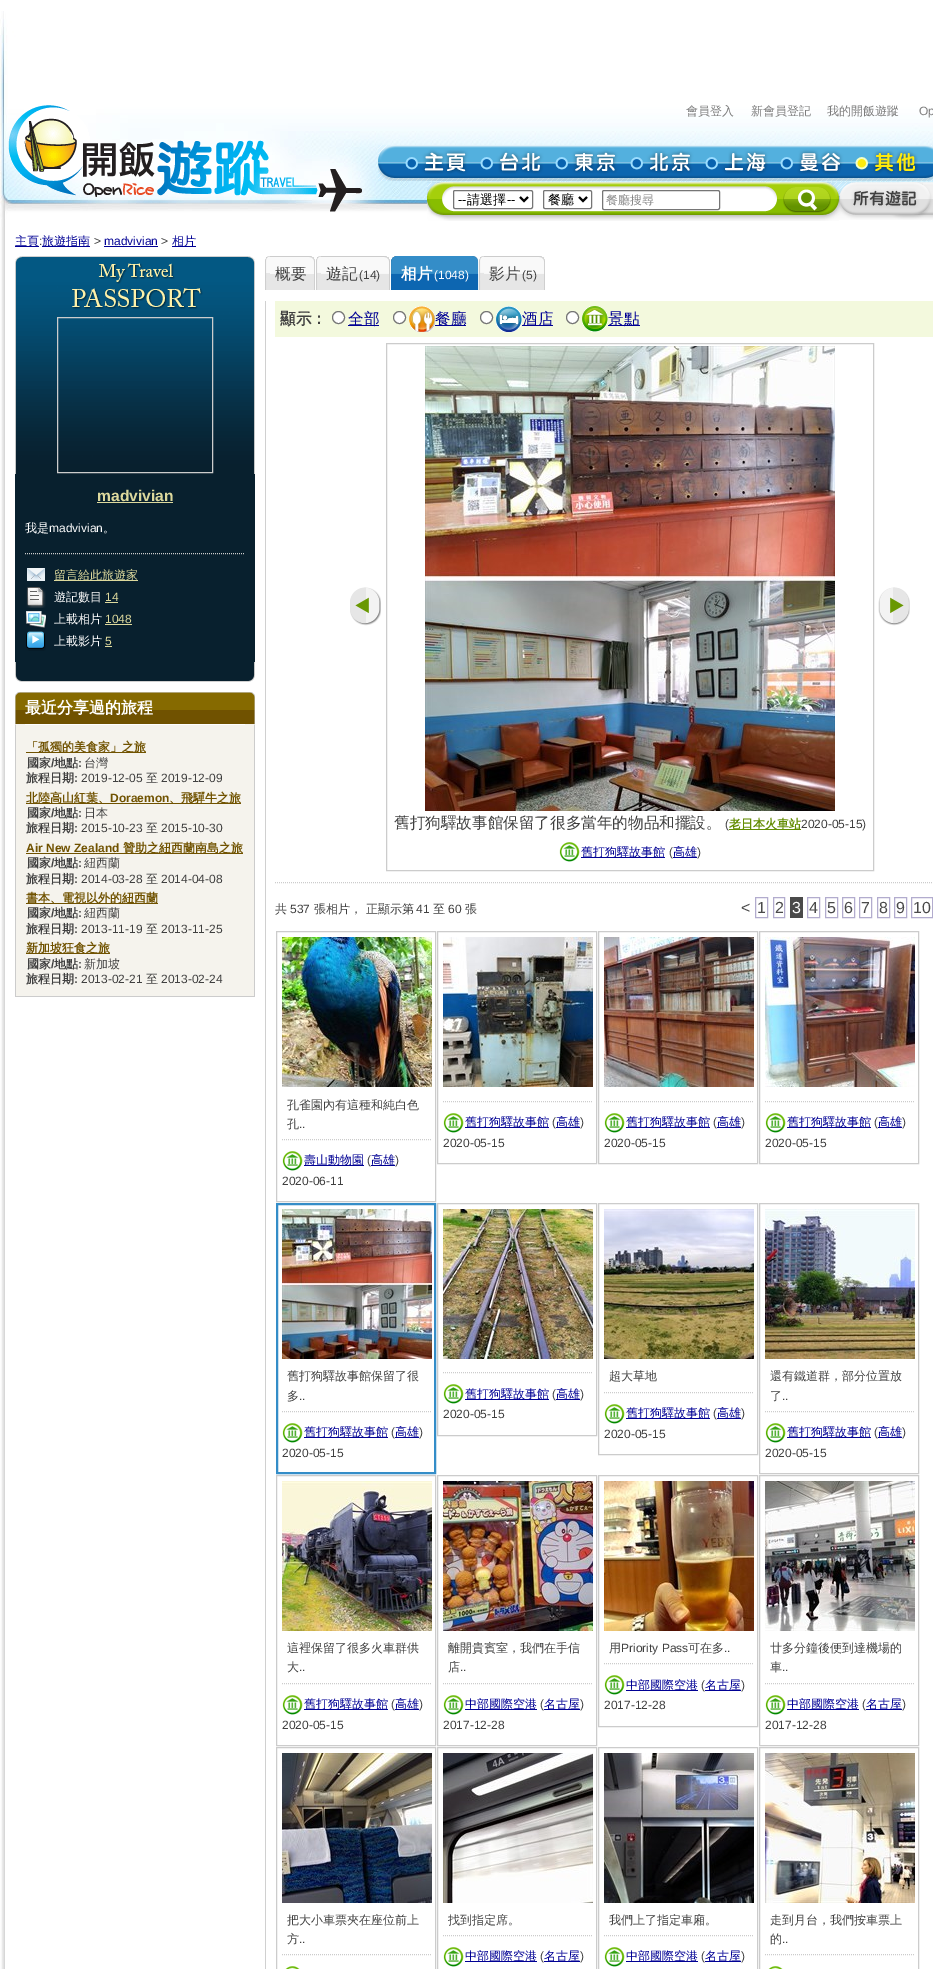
%!PS
<< /PageSize [933 1969] >> setpagedevice
/rgb { 3 { 255 div 3 1 roll } repeat setrgbcolor } def
/font { [ exch dup neg 0 0 3 -1 roll 0 0 ] selectfont } def
/circle { newpath 0 360 arc closepath } def
/roundrect { 5 dict begin { /r /h /w /y /x } { exch def } forall
  x r add y moveto x w add y 2 copy h add r arct x w add y h add x 1 index r arct
  x y h add x y r arct x y 2 copy exch w add exch r arct closepath end } def
/picture { 5 dict begin { /h /w /y /x /name } { exch def } forall
  gsave x y translate w h scale
  w h 8 [w 0 0 h 0 0] name (r) file false 3 colorimage grestore end } def
0 1969 translate 1 -1 scale
4 setmiterlimit
255 255 255 rgb
0 0 933 1969 rectfill
(img/1.rgb) 0 11 933 216 picture
(img/2.rgb) 8 105 354 107 picture
(img/3.rgb) 378 145 20 36 picture
(img/4.rgb) 398 145 75 36 picture
(img/5.rgb) 473 145 75 36 picture
(img/6.rgb) 548 145 75 36 picture
(img/7.rgb) 623 145 75 36 picture
(img/8.rgb) 698 145 75 36 picture
(img/9.rgb) 773 145 75 36 picture
(img/10.rgb) 848 145 75 36 picture
(img/11.rgb) 923 145 10 36 picture
(img/12.rgb) 427 182 26 39 picture
(img/13.rgb) 453 182 313 39 picture
118 118 118 rgb
453.5 190.5 79 18 1.5 roundrect stroke
0 0 0 rgb
2 setlinewidth
520 197 moveto 524 201 lineto 528 197 lineto stroke
118 118 118 rgb
1 setlinewidth
543.5 190.5 48 18 1.5 roundrect stroke
0 0 0 rgb
2 setlinewidth
579 197 moveto 583 201 lineto 587 197 lineto stroke
118 118 118 rgb
1 setlinewidth
602.5 190.5 117 19 1.5 roundrect stroke
(img/14.rgb) 766 182 14 39 picture
(img/15.rgb) 780 182 59 39 picture
(img/16.rgb) 839 182 92 38 picture
(img/17.rgb) 931 182 2 38 picture
(img/18.rgb) 0 227 933 1742 picture
[
  [15 246 24 1 0 0 148]
  [42 246 48 1 0 0 148]
  [104 246 54 1 0 0 148]
  [172 246 24 1 0 0 148]
] { aload pop rgb rectfill } forall
(img/19.rgb) 15 256 240 218 picture
204 204 204 rgb
57.5 317.5 155 155 rectstroke
8 32 46 rgb
15 474 240 188 rectfill
221 217 157 rgb
97 502 76 1 rectfill
204 204 204 rgb
[1 1] 0 setdash
25 553.5 moveto 245 553.5 lineto stroke
(img/20.rgb) 27 568 18 13 picture
221 217 157 rgb
54 580 84 1 rectfill
(img/21.rgb) 26 587 20 21 picture
105 602 13 1 rectfill
(img/22.rgb) 26 611 21 19 picture
105 624 27 1 rectfill
(img/23.rgb) 26 631 20 20 picture
105 646 7 1 rectfill
(img/24.rgb) 15 662 240 20 picture
(img/25.rgb) 15 692 10 33 picture
(img/26.rgb) 25 692 220 32 picture
(img/27.rgb) 245 692 10 33 picture
[
  [16 725 238 271 245 243 237]
  [254 725 1 272 204 204 204]
  [15 996 240 1 204 204 204]
  [15 725 1 272 204 204 204]
  [26 752 120 1 112 82 0]
  [26 803 215 1 112 82 0]
  [26 853 217 1 112 82 0]
  [26 903 132 1 112 82 0]
  [26 953 84 1 112 82 0]
] { aload pop rgb rectfill } forall
(img/28.rgb) 265 256 5 34 picture
(img/29.rgb) 270 256 45 34 picture
(img/30.rgb) 316 256 5 34 picture
(img/31.rgb) 321 256 69 34 picture
(img/32.rgb) 391 256 5 34 picture
(img/33.rgb) 396 256 83 34 picture
(img/30.rgb) 479 256 5 34 picture
(img/34.rgb) 484 256 61 34 picture
208 208 208 rgb
265 301 1 1668 rectfill
243 249 221 rgb
275 301 658 36 rectfill
255 255 255 rgb
338.5 317.5 6 circle gsave fill grestore
118 118 118 rgb
[] 0 setdash
stroke
0 0 148 rgb
348 325 31 1 rectfill
255 255 255 rgb
399.5 317.5 6 circle gsave fill grestore
118 118 118 rgb
stroke
(img/35.rgb) 409 306 26 26 picture
0 0 148 rgb
435 325 31 1 rectfill
255 255 255 rgb
486.5 317.5 6 circle gsave fill grestore
118 118 118 rgb
stroke
(img/36.rgb) 496 306 26 26 picture
0 0 148 rgb
522 325 31 1 rectfill
255 255 255 rgb
572.5 317.5 6 circle gsave fill grestore
118 118 118 rgb
stroke
(img/37.rgb) 582 306 26 26 picture
0 0 148 rgb
608 325 32 1 rectfill
(img/38.rgb) 350 587 31 39 picture
(img/39.rgb) 878 587 32 39 picture
204 204 204 rgb
386.5 343.5 487 527 rectstroke
(img/40.rgb) 425 346 410 465 picture
99 141 3 rgb
729 829 72 1 rectfill
(img/41.rgb) 559 842 21 20 picture
0 0 148 rgb
581 857 84 1 rectfill
673 857 24 1 rectfill
204 204 204 rgb
[1 1] 0 setdash
275 882.5 moveto 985 882.5 lineto stroke
178 172 206 rgb
[] 0 setdash
755.5 897.5 12 20 rectstroke
773.5 897.5 11 20 rectstroke
74 74 74 rgb
790 897 13 21 rectfill
178 172 206 rgb
807.5 897.5 12 20 rectstroke
825.5 897.5 12 20 rectstroke
842.5 897.5 12 20 rectstroke
859.5 897.5 12 20 rectstroke
877.5 897.5 12 20 rectstroke
894.5 897.5 12 20 rectstroke
911.5 897.5 21 20 rectstroke
204 204 204 rgb
276.5 931.5 159 270 rectstroke
(img/42.rgb) 282 937 150 150 picture
[1 1] 0 setdash
282 1139.5 moveto 432 1139.5 lineto stroke
(img/41.rgb) 282 1151 21 20 picture
0 0 148 rgb
304 1165 60 1 rectfill
204 204 204 rgb
[] 0 setdash
437.5 931.5 159 232 rectstroke
(img/43.rgb) 443 937 150 150 picture
[1 1] 0 setdash
443 1101.5 moveto 593 1101.5 lineto stroke
(img/41.rgb) 443 1113 21 20 picture
0 0 148 rgb
465 1127 84 1 rectfill
204 204 204 rgb
[] 0 setdash
598.5 931.5 159 232 rectstroke
(img/44.rgb) 604 937 150 150 picture
[1 1] 0 setdash
604 1101.5 moveto 754 1101.5 lineto stroke
(img/41.rgb) 604 1113 21 20 picture
0 0 148 rgb
626 1127 84 1 rectfill
204 204 204 rgb
[] 0 setdash
759.5 931.5 159 232 rectstroke
(img/45.rgb) 765 937 150 150 picture
[1 1] 0 setdash
765 1101.5 moveto 915 1101.5 lineto stroke
(img/41.rgb) 765 1113 21 20 picture
0 0 148 rgb
787 1127 84 1 rectfill
52 141 200 rgb
2 setlinewidth
[] 0 setdash
277 1204 158 269 rectstroke
(img/46.rgb) 282 1209 150 150 picture
204 204 204 rgb
1 setlinewidth
[1 1] 0 setdash
282 1411.5 moveto 432 1411.5 lineto stroke
(img/41.rgb) 282 1423 21 20 picture
0 0 148 rgb
304 1437 84 1 rectfill
204 204 204 rgb
[] 0 setdash
437.5 1203.5 159 232 rectstroke
(img/47.rgb) 443 1209 150 150 picture
[1 1] 0 setdash
443 1372.5 moveto 593 1372.5 lineto stroke
(img/41.rgb) 443 1384 21 20 picture
0 0 148 rgb
465 1399 84 1 rectfill
204 204 204 rgb
[] 0 setdash
598.5 1203.5 159 251 rectstroke
(img/48.rgb) 604 1209 150 150 picture
[1 1] 0 setdash
604 1392.5 moveto 754 1392.5 lineto stroke
(img/41.rgb) 604 1404 21 20 picture
0 0 148 rgb
626 1418 84 1 rectfill
204 204 204 rgb
[] 0 setdash
759.5 1203.5 159 270 rectstroke
(img/49.rgb) 765 1209 150 150 picture
[1 1] 0 setdash
765 1411.5 moveto 915 1411.5 lineto stroke
(img/41.rgb) 765 1423 21 20 picture
0 0 148 rgb
787 1437 84 1 rectfill
204 204 204 rgb
[] 0 setdash
276.5 1475.5 159 270 rectstroke
(img/50.rgb) 282 1481 150 150 picture
[1 1] 0 setdash
282 1683.5 moveto 432 1683.5 lineto stroke
(img/41.rgb) 282 1695 21 20 picture
0 0 148 rgb
304 1709 84 1 rectfill
204 204 204 rgb
[] 0 setdash
437.5 1475.5 159 270 rectstroke
(img/51.rgb) 443 1481 150 150 picture
[1 1] 0 setdash
443 1683.5 moveto 593 1683.5 lineto stroke
(img/41.rgb) 443 1695 21 20 picture
0 0 148 rgb
465 1709 72 1 rectfill
204 204 204 rgb
[] 0 setdash
598.5 1475.5 159 251 rectstroke
(img/52.rgb) 604 1481 150 150 picture
[1 1] 0 setdash
604 1663.5 moveto 754 1663.5 lineto stroke
(img/41.rgb) 604 1675 21 20 picture
0 0 148 rgb
626 1690 72 1 rectfill
204 204 204 rgb
[] 0 setdash
759.5 1475.5 159 270 rectstroke
(img/53.rgb) 765 1481 150 150 picture
[1 1] 0 setdash
765 1683.5 moveto 915 1683.5 lineto stroke
(img/41.rgb) 765 1695 21 20 picture
0 0 148 rgb
787 1709 72 1 rectfill
204 204 204 rgb
[] 0 setdash
276.5 1747.5 159 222 rectstroke
(img/54.rgb) 282 1753 150 150 picture
[1 1] 0 setdash
282 1954.5 moveto 432 1954.5 lineto stroke
(img/55.rgb) 285 1966 15 3 picture
[] 0 setdash
437.5 1747.5 159 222 rectstroke
(img/56.rgb) 443 1753 150 150 picture
[1 1] 0 setdash
443 1935.5 moveto 593 1935.5 lineto stroke
(img/41.rgb) 443 1947 21 20 picture
0 0 148 rgb
465 1961 72 1 rectfill
204 204 204 rgb
[] 0 setdash
598.5 1747.5 159 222 rectstroke
(img/57.rgb) 604 1753 150 150 picture
[1 1] 0 setdash
604 1935.5 moveto 754 1935.5 lineto stroke
(img/41.rgb) 604 1947 21 20 picture
0 0 148 rgb
626 1961 72 1 rectfill
204 204 204 rgb
[] 0 setdash
759.5 1747.5 159 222 rectstroke
(img/58.rgb) 765 1753 150 150 picture
[1 1] 0 setdash
765 1954.5 moveto 915 1954.5 lineto stroke
(img/55.rgb) 768 1966 15 3 picture
/WenQuanYiZenHei-Medium 12 font
124 124 124 rgb
[
  [(會員登入) 686 115]
  [(新會員登記) 751 115]
  [(我的開飯遊蹤) 827 115]
] { aload pop moveto show } forall
/LiberationSans-Regular 12 font
919 115 moveto (Op) show
/LiberationSans-Regular 13 font
0 0 0 rgb
458 204 moveto (--) show
/WenQuanYiZenHei-Medium 13 font
467 204 moveto (請選擇) show
/LiberationSans-Regular 13 font
507 204 moveto (--) show
/WenQuanYiZenHei-Medium 13 font
548 204 moveto (餐廳) show
/WenQuanYiZenHei-Medium 12 font
136 136 136 rgb
606 204 moveto (餐廳搜尋) show
0 0 148 rgb
15 245 moveto (主頁) show
/LiberationSans-Regular 12 font
64 64 64 rgb
39 245 moveto (:) show
/WenQuanYiZenHei-Medium 12 font
0 0 148 rgb
42 245 moveto (旅遊指南) show
/LiberationSans-Regular 12 font
64 64 64 rgb
94 245 moveto (>) show
0 0 148 rgb
104 245 moveto (madvivian) show
64 64 64 rgb
161 245 moveto (>) show
/WenQuanYiZenHei-Medium 12 font
0 0 148 rgb
172 245 moveto (相片) show
/LiberationSans-Bold 15.6 font
221 217 157 rgb
97 501 moveto (madvivian) show
/WenQuanYiZenHei-Medium 12 font
255 255 255 rgb
25 532 moveto (我是) show
/LiberationSans-Regular 12 font
49 532 moveto (madvivian) show
/WenQuanYiZenHei-Medium 12 font
103 532 moveto (。) show
221 217 157 rgb
54 579 moveto (留言給此旅遊家) show
255 255 255 rgb
54 601 moveto (遊記數目) show
/LiberationSans-Regular 12 font
221 217 157 rgb
105 601 moveto (14) show
/WenQuanYiZenHei-Medium 12 font
255 255 255 rgb
54 623 moveto (上載相片) show
/LiberationSans-Regular 12 font
221 217 157 rgb
105 623 moveto (1048) show
/WenQuanYiZenHei-Medium 12 font
255 255 255 rgb
54 645 moveto (上載影片) show
/LiberationSans-Regular 12 font
221 217 157 rgb
105 645 moveto (5) show
/WenQuanYiZenHei-Bold 16 font
255 255 255 rgb
25 713 moveto (最近分享過的旅程) show
/WenQuanYiZenHei-Bold 12 font
112 82 0 rgb
26 751 moveto (「孤獨的美食家」之旅) show
64 64 64 rgb
27 767 moveto (國家) show
/LiberationSans-Bold 12 font
51 767 moveto (/) show
/WenQuanYiZenHei-Bold 12 font
54 767 moveto (地點) show
/LiberationSans-Bold 12 font
78 767 moveto (:) show
/WenQuanYiZenHei-Medium 12 font
84 767 moveto (台灣) show
/WenQuanYiZenHei-Bold 12 font
26 782 moveto (旅程日期) show
/LiberationSans-Bold 12 font
74 782 moveto (:) show
/LiberationSans-Regular 12 font
81 782 moveto (2019-12-05) show
/WenQuanYiZenHei-Medium 12 font
146 782 moveto (至) show
/LiberationSans-Regular 12 font
161 782 moveto (2019-12-09) show
/WenQuanYiZenHei-Bold 12 font
112 82 0 rgb
26 802 moveto (北陸高山紅葉、) show
/LiberationSans-Bold 12 font
110 802 moveto (Doraemon) show
/WenQuanYiZenHei-Bold 12 font
169 802 moveto (、飛驒牛之旅) show
64 64 64 rgb
27 817 moveto (國家) show
/LiberationSans-Bold 12 font
51 817 moveto (/) show
/WenQuanYiZenHei-Bold 12 font
54 817 moveto (地點) show
/LiberationSans-Bold 12 font
78 817 moveto (:) show
/WenQuanYiZenHei-Medium 12 font
84 817 moveto (日本) show
/WenQuanYiZenHei-Bold 12 font
26 832 moveto (旅程日期) show
/LiberationSans-Bold 12 font
74 832 moveto (:) show
/LiberationSans-Regular 12 font
81 832 moveto (2015-10-23) show
/WenQuanYiZenHei-Medium 12 font
146 832 moveto (至) show
/LiberationSans-Regular 12 font
161 832 moveto (2015-10-30) show
/LiberationSans-Bold 12 font
112 82 0 rgb
26 852 moveto (Air New Zealand) show
/WenQuanYiZenHei-Bold 12 font
123 852 moveto (贊助之紐西蘭南島之旅) show
64 64 64 rgb
27 867 moveto (國家) show
/LiberationSans-Bold 12 font
51 867 moveto (/) show
/WenQuanYiZenHei-Bold 12 font
54 867 moveto (地點) show
/LiberationSans-Bold 12 font
78 867 moveto (:) show
/WenQuanYiZenHei-Medium 12 font
84 867 moveto (紐西蘭) show
/WenQuanYiZenHei-Bold 12 font
26 883 moveto (旅程日期) show
/LiberationSans-Bold 12 font
74 883 moveto (:) show
/LiberationSans-Regular 12 font
81 883 moveto (2014-03-28) show
/WenQuanYiZenHei-Medium 12 font
146 883 moveto (至) show
/LiberationSans-Regular 12 font
161 883 moveto (2014-04-08) show
/WenQuanYiZenHei-Bold 12 font
112 82 0 rgb
26 902 moveto (書本、電視以外的紐西蘭) show
64 64 64 rgb
27 917 moveto (國家) show
/LiberationSans-Bold 12 font
51 917 moveto (/) show
/WenQuanYiZenHei-Bold 12 font
54 917 moveto (地點) show
/LiberationSans-Bold 12 font
78 917 moveto (:) show
/WenQuanYiZenHei-Medium 12 font
84 917 moveto (紐西蘭) show
/WenQuanYiZenHei-Bold 12 font
26 933 moveto (旅程日期) show
/LiberationSans-Bold 12 font
74 933 moveto (:) show
/LiberationSans-Regular 12 font
81 933 moveto (2013-11-19) show
/WenQuanYiZenHei-Medium 12 font
146 933 moveto (至) show
/LiberationSans-Regular 12 font
161 933 moveto (2013-11-25) show
/WenQuanYiZenHei-Bold 12 font
112 82 0 rgb
26 952 moveto (新加坡狂食之旅) show
64 64 64 rgb
27 968 moveto (國家) show
/LiberationSans-Bold 12 font
51 968 moveto (/) show
/WenQuanYiZenHei-Bold 12 font
54 968 moveto (地點) show
/LiberationSans-Bold 12 font
78 968 moveto (:) show
/WenQuanYiZenHei-Medium 12 font
84 968 moveto (新加坡) show
/WenQuanYiZenHei-Bold 12 font
26 983 moveto (旅程日期) show
/LiberationSans-Bold 12 font
74 983 moveto (:) show
/LiberationSans-Regular 12 font
81 983 moveto (2013-02-21) show
/WenQuanYiZenHei-Medium 12 font
146 983 moveto (至) show
/LiberationSans-Regular 12 font
161 983 moveto (2013-02-24) show
/WenQuanYiZenHei-Medium 15.6 font
275 279 moveto (概要) show
326 279 moveto (遊記) show
/LiberationSans-Regular 12 font
359 279 moveto (\(14\)) show
/WenQuanYiZenHei-Bold 15.6 font
255 255 255 rgb
401 279 moveto (相片) show
/LiberationSans-Regular 12 font
434 279 moveto (\(1048\)) show
/WenQuanYiZenHei-Medium 15.6 font
64 64 64 rgb
489 279 moveto (影片) show
/LiberationSans-Regular 12 font
522 279 moveto (\(5\)) show
/WenQuanYiZenHei-Bold 15.6 font
280 324 moveto (顯示：) show
/WenQuanYiZenHei-Medium 15.6 font
0 0 148 rgb
[
  [(全部) 348 324]
  [(餐廳) 435 324]
  [(酒店) 522 324]
  [(景點) 608 324]
] { aload pop moveto show } forall
64 64 64 rgb
394 828 moveto (舊打狗驛故事館保留了很多當年的物品和擺設。) show
/LiberationSans-Regular 12 font
725 828 moveto (\() show
/WenQuanYiZenHei-Bold 12 font
99 141 3 rgb
729 828 moveto (老日本火車站) show
/LiberationSans-Regular 12 font
64 64 64 rgb
801 828 moveto (2020-05-15\)) show
/WenQuanYiZenHei-Medium 12 font
0 0 148 rgb
581 856 moveto (舊打狗驛故事館) show
/LiberationSans-Regular 12 font
64 64 64 rgb
669 856 moveto (\() show
/WenQuanYiZenHei-Medium 12 font
0 0 148 rgb
673 856 moveto (高雄) show
/LiberationSans-Regular 12 font
64 64 64 rgb
697 856 moveto (\)) show
/WenQuanYiZenHei-Medium 12 font
275 913 moveto (共) show
/LiberationSans-Regular 12 font
290 913 moveto (537) show
/WenQuanYiZenHei-Medium 12 font
314 913 moveto (張相片， 正顯示第) show
/LiberationSans-Regular 12 font
416 913 moveto (41) show
/WenQuanYiZenHei-Medium 12 font
433 913 moveto (至) show
/LiberationSans-Regular 12 font
448 913 moveto (60) show
/WenQuanYiZenHei-Medium 12 font
465 913 moveto (張) show
/LiberationSans-Regular 16 font
74 74 74 rgb
[
  [(<) 741 913]
  [(1) 757 913]
  [(2) 775 913]
] { aload pop moveto show } forall
255 255 255 rgb
792 913 moveto (3) show
74 74 74 rgb
[
  [(4) 809 913]
  [(5) 827 913]
  [(6) 844 913]
  [(7) 861 913]
  [(8) 879 913]
  [(9) 896 913]
  [(10) 913 913]
] { aload pop moveto show } forall
/WenQuanYiZenHei-Medium 12 font
64 64 64 rgb
287 1109 moveto (孔雀園內有這種和純白色) show
287 1128 moveto (孔) show
/LiberationSans-Regular 12 font
299 1128 moveto (..) show
/WenQuanYiZenHei-Medium 12 font
0 0 148 rgb
304 1164 moveto (壽山動物園) show
/LiberationSans-Regular 12 font
64 64 64 rgb
367 1164 moveto (\() show
0 0 148 rgb
371 1165 24 1 rectfill
/WenQuanYiZenHei-Medium 12 font
371 1164 moveto (高雄) show
/LiberationSans-Regular 12 font
64 64 64 rgb
395 1164 moveto (\)) show
282 1185 moveto (2020-06-11) show
/WenQuanYiZenHei-Medium 12 font
0 0 148 rgb
465 1126 moveto (舊打狗驛故事館) show
/LiberationSans-Regular 12 font
64 64 64 rgb
552 1126 moveto (\() show
0 0 148 rgb
556 1127 24 1 rectfill
/WenQuanYiZenHei-Medium 12 font
556 1126 moveto (高雄) show
/LiberationSans-Regular 12 font
64 64 64 rgb
580 1126 moveto (\)) show
443 1147 moveto (2020-05-15) show
/WenQuanYiZenHei-Medium 12 font
0 0 148 rgb
626 1126 moveto (舊打狗驛故事館) show
/LiberationSans-Regular 12 font
64 64 64 rgb
713 1126 moveto (\() show
0 0 148 rgb
717 1127 24 1 rectfill
/WenQuanYiZenHei-Medium 12 font
717 1126 moveto (高雄) show
/LiberationSans-Regular 12 font
64 64 64 rgb
741 1126 moveto (\)) show
604 1147 moveto (2020-05-15) show
/WenQuanYiZenHei-Medium 12 font
0 0 148 rgb
787 1126 moveto (舊打狗驛故事館) show
/LiberationSans-Regular 12 font
64 64 64 rgb
874 1126 moveto (\() show
0 0 148 rgb
878 1127 24 1 rectfill
/WenQuanYiZenHei-Medium 12 font
878 1126 moveto (高雄) show
/LiberationSans-Regular 12 font
64 64 64 rgb
902 1126 moveto (\)) show
765 1147 moveto (2020-05-15) show
/WenQuanYiZenHei-Medium 12 font
287 1380 moveto (舊打狗驛故事館保留了很) show
287 1400 moveto (多) show
/LiberationSans-Regular 12 font
299 1400 moveto (..) show
/WenQuanYiZenHei-Medium 12 font
0 0 148 rgb
304 1436 moveto (舊打狗驛故事館) show
/LiberationSans-Regular 12 font
64 64 64 rgb
391 1436 moveto (\() show
0 0 148 rgb
395 1437 24 1 rectfill
/WenQuanYiZenHei-Medium 12 font
395 1436 moveto (高雄) show
/LiberationSans-Regular 12 font
64 64 64 rgb
419 1436 moveto (\)) show
282 1457 moveto (2020-05-15) show
/WenQuanYiZenHei-Medium 12 font
0 0 148 rgb
465 1398 moveto (舊打狗驛故事館) show
/LiberationSans-Regular 12 font
64 64 64 rgb
552 1398 moveto (\() show
0 0 148 rgb
556 1399 24 1 rectfill
/WenQuanYiZenHei-Medium 12 font
556 1398 moveto (高雄) show
/LiberationSans-Regular 12 font
64 64 64 rgb
580 1398 moveto (\)) show
443 1418 moveto (2020-05-15) show
/WenQuanYiZenHei-Medium 12 font
609 1380 moveto (超大草地) show
0 0 148 rgb
626 1417 moveto (舊打狗驛故事館) show
/LiberationSans-Regular 12 font
64 64 64 rgb
713 1417 moveto (\() show
0 0 148 rgb
717 1418 24 1 rectfill
/WenQuanYiZenHei-Medium 12 font
717 1417 moveto (高雄) show
/LiberationSans-Regular 12 font
64 64 64 rgb
741 1417 moveto (\)) show
604 1438 moveto (2020-05-15) show
/WenQuanYiZenHei-Medium 12 font
770 1380 moveto (還有鐵道群，部分位置放) show
770 1400 moveto (了) show
/LiberationSans-Regular 12 font
782 1400 moveto (..) show
/WenQuanYiZenHei-Medium 12 font
0 0 148 rgb
787 1436 moveto (舊打狗驛故事館) show
/LiberationSans-Regular 12 font
64 64 64 rgb
874 1436 moveto (\() show
0 0 148 rgb
878 1437 24 1 rectfill
/WenQuanYiZenHei-Medium 12 font
878 1436 moveto (高雄) show
/LiberationSans-Regular 12 font
64 64 64 rgb
902 1436 moveto (\)) show
765 1457 moveto (2020-05-15) show
/WenQuanYiZenHei-Medium 12 font
287 1652 moveto (這裡保留了很多火車群供) show
287 1671 moveto (大) show
/LiberationSans-Regular 12 font
299 1671 moveto (..) show
/WenQuanYiZenHei-Medium 12 font
0 0 148 rgb
304 1708 moveto (舊打狗驛故事館) show
/LiberationSans-Regular 12 font
64 64 64 rgb
391 1708 moveto (\() show
0 0 148 rgb
395 1709 24 1 rectfill
/WenQuanYiZenHei-Medium 12 font
395 1708 moveto (高雄) show
/LiberationSans-Regular 12 font
64 64 64 rgb
419 1708 moveto (\)) show
282 1729 moveto (2020-05-15) show
/WenQuanYiZenHei-Medium 12 font
448 1652 moveto (離開貴賓室，我們在手信) show
448 1671 moveto (店) show
/LiberationSans-Regular 12 font
460 1671 moveto (..) show
/WenQuanYiZenHei-Medium 12 font
0 0 148 rgb
465 1708 moveto (中部國際空港) show
/LiberationSans-Regular 12 font
64 64 64 rgb
540 1708 moveto (\() show
0 0 148 rgb
544 1709 36 1 rectfill
/WenQuanYiZenHei-Medium 12 font
544 1708 moveto (名古屋) show
/LiberationSans-Regular 12 font
64 64 64 rgb
580 1708 moveto (\)) show
443 1729 moveto (2017-12-28) show
/WenQuanYiZenHei-Medium 12 font
609 1652 moveto (用) show
/LiberationSans-Regular 12 font
621 1652 moveto (Priority Pass) show
/WenQuanYiZenHei-Medium 12 font
688 1652 moveto (可在多) show
/LiberationSans-Regular 12 font
724 1652 moveto (..) show
/WenQuanYiZenHei-Medium 12 font
0 0 148 rgb
626 1689 moveto (中部國際空港) show
/LiberationSans-Regular 12 font
64 64 64 rgb
701 1689 moveto (\() show
0 0 148 rgb
705 1690 36 1 rectfill
/WenQuanYiZenHei-Medium 12 font
705 1689 moveto (名古屋) show
/LiberationSans-Regular 12 font
64 64 64 rgb
741 1689 moveto (\)) show
604 1709 moveto (2017-12-28) show
/WenQuanYiZenHei-Medium 12 font
770 1652 moveto (廿多分鐘後便到達機場的) show
770 1671 moveto (車) show
/LiberationSans-Regular 12 font
782 1671 moveto (..) show
/WenQuanYiZenHei-Medium 12 font
0 0 148 rgb
787 1708 moveto (中部國際空港) show
/LiberationSans-Regular 12 font
64 64 64 rgb
862 1708 moveto (\() show
0 0 148 rgb
866 1709 36 1 rectfill
/WenQuanYiZenHei-Medium 12 font
866 1708 moveto (名古屋) show
/LiberationSans-Regular 12 font
64 64 64 rgb
902 1708 moveto (\)) show
765 1729 moveto (2017-12-28) show
/WenQuanYiZenHei-Medium 12 font
287 1924 moveto (把大小車票夾在座位前上) show
287 1943 moveto (方) show
/LiberationSans-Regular 12 font
299 1943 moveto (..) show
/WenQuanYiZenHei-Medium 12 font
448 1924 moveto (找到指定席。) show
0 0 148 rgb
465 1960 moveto (中部國際空港) show
/LiberationSans-Regular 12 font
64 64 64 rgb
540 1960 moveto (\() show
0 0 148 rgb
544 1961 36 1 rectfill
/WenQuanYiZenHei-Medium 12 font
544 1960 moveto (名古屋) show
/LiberationSans-Regular 12 font
64 64 64 rgb
580 1960 moveto (\)) show
/WenQuanYiZenHei-Medium 12 font
609 1924 moveto (我們上了指定車廂。) show
0 0 148 rgb
626 1960 moveto (中部國際空港) show
/LiberationSans-Regular 12 font
64 64 64 rgb
701 1960 moveto (\() show
0 0 148 rgb
705 1961 36 1 rectfill
/WenQuanYiZenHei-Medium 12 font
705 1960 moveto (名古屋) show
/LiberationSans-Regular 12 font
64 64 64 rgb
741 1960 moveto (\)) show
/WenQuanYiZenHei-Medium 12 font
770 1924 moveto (走到月台，我們按車票上) show
770 1943 moveto (的) show
/LiberationSans-Regular 12 font
782 1943 moveto (..) show
showpage
